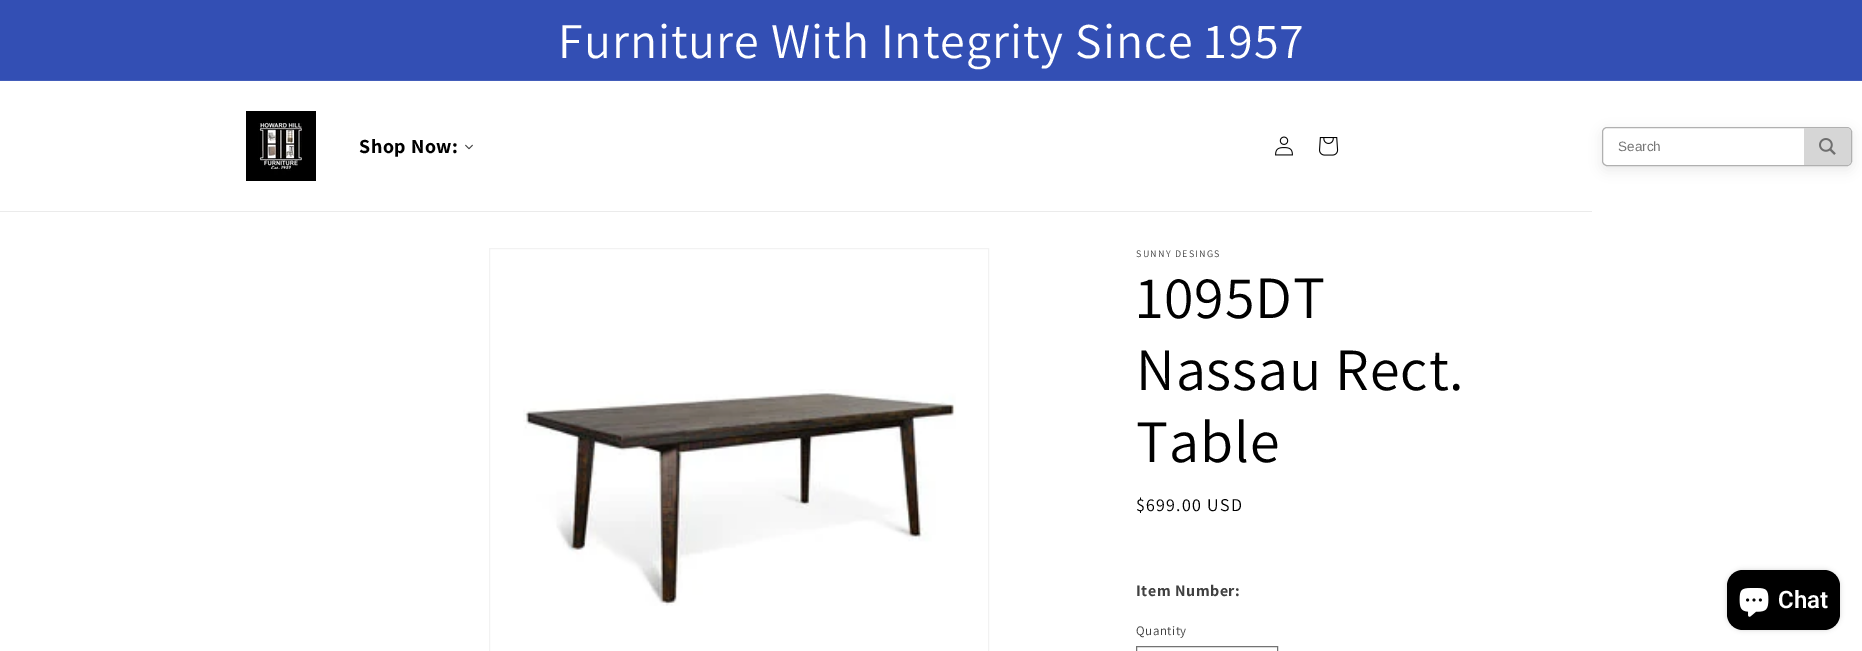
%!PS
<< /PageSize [1862 651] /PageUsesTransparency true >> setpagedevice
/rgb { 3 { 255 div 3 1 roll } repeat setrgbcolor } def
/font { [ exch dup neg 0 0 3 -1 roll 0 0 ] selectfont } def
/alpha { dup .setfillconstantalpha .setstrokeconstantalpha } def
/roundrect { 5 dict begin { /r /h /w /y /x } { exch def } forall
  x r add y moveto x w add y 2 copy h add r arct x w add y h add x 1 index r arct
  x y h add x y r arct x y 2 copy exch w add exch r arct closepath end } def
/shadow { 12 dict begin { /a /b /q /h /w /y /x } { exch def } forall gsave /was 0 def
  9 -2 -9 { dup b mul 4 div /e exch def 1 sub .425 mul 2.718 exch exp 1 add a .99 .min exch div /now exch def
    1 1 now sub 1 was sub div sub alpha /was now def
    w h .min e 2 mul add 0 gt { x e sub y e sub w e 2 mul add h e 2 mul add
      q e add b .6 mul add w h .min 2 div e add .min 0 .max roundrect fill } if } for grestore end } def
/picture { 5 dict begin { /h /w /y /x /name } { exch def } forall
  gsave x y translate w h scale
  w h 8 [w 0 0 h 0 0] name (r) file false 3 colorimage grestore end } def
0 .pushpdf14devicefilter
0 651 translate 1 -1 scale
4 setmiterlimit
255 255 255 rgb
0 0 1862 651 rectfill
[
  [0 0 1862 80 51 79 180]
  [0 80 1862 1 67 93 186]
  [0 211 1592 1 235 235 235]
] { aload pop rgb rectfill } forall
(img/1.rgb) 246 111 70 70 picture
(img/2.rgb) 465 144 8 6 picture
(img/3.rgb) 1275 136 18 20 picture
(img/4.rgb) 1319 137 20 19 picture
0 0 0 rgb
1602 131 250 39 5 6 0.08 shadow
255 255 255 rgb
1602.5 127.5 249 38 4.5 roundrect gsave fill grestore
176 176 176 rgb
stroke
214 214 214 rgb
1804 128 moveto 1847 128 lineto 1849 128 1851 130 1851 132 curveto 1851 161 lineto 1851 163 1849 165 1847 165 curveto 1804 165 lineto closepath fill
(img/5.rgb) 1819 138 17 17 picture
242 242 242 rgb
489.5 248.5 499 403 rectstroke
(img/6.rgb) 523 389 433 217 picture
115 115 115 rgb
1136.5 646.5 141 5 rectstroke
0 0 0 rgb
1727 570 113 60 16 2.5 0.15 shadow
1727 570 113 60 16 roundrect fill
(img/7.rgb) 1739 588 30 29 picture
/Assistant-Regular 50 font
255 255 255 rgb
558 58 moveto 1 0 (Furniture With Integrity Since 1957) ashow
/Assistant-Bold 20 font
0 0 0 rgb
359 153 moveto 0.6 0 (Shop Now:) ashow
/LiberationSans-Regular 13.5 font
117 117 117 rgb
1618 151 moveto (Search) show
/Assistant-Regular 10 font
64 64 64 rgb
1136 257 moveto 1.25 0 (SUNNY DESINGS) ashow
/Assistant-Regular 60 font
0 0 0 rgb
1136 318 moveto 0.9 0 (1095DT) ashow
1136 390 moveto 0.9 0 (Nassau Rect.) ashow
1136 462 moveto 0.9 0 (Table) ashow
/Assistant-Regular 18 font
1136 511 moveto 1.25 0 ($699.00 USD) ashow
/Assistant-Bold 16 font
64 64 64 rgb
1136 596 moveto 0.6 0 (Item Number:) ashow
/Assistant-Regular 13 font
1136 635 moveto 0.5 0 (Quantity) ashow
/Roboto-SemiBold 24 font
255 255 255 rgb
1778 608 moveto (Chat) show
.poppdf14devicefilter showpage
